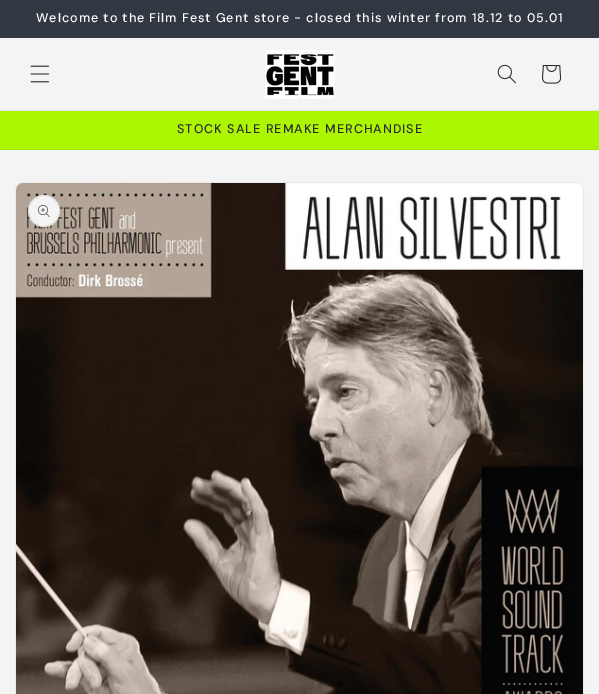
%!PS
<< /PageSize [599 694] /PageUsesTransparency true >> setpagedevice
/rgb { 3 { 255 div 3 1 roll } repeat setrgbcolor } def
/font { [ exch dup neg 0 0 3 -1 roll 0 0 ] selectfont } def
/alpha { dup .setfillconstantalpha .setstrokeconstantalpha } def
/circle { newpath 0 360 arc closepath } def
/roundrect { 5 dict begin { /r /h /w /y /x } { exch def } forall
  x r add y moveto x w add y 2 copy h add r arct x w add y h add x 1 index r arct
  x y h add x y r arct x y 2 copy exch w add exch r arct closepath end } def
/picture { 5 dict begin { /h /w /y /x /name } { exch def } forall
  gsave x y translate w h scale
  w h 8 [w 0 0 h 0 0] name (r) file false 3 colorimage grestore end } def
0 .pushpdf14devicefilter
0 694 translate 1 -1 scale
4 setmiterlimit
244 244 244 rgb
0 0 599 694 rectfill
50 56 65 rgb
0 0 599 38 rectfill
228 228 228 rgb
0 110 599 1 rectfill
(img/1.rgb) 30 65 20 18 picture
(img/2.rgb) 265 50 70 49 picture
(img/3.rgb) 497 64 19 20 picture
(img/4.rgb) 542 65 20 19 picture
171 246 0 rgb
0 111 599 38 rectfill
161 230 4 rgb
0 149 599 1 rectfill
234 234 234 rgb
15.5 182.5 568 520 7.5 roundrect stroke
(img/5.rgb) 16 183 567 511 picture
244 244 244 rgb
44 211 16 circle fill
0.1 alpha
43 44 45 rgb
44 211 15.5 circle stroke
1 alpha
(img/6.rgb) 38 205 12 12 picture
/DMSans-Medium 12.6 font
255 255 255 rgb
36 22 moveto -0.25 0 32 1 0 (Welcome to the Film Fest Gent store - closed this winter from 18.12 to 05.01) awidthshow
43 44 45 rgb
177 133 moveto 1 0 (STOCK SALE REMAKE MERCHANDISE) ashow
.poppdf14devicefilter showpage
